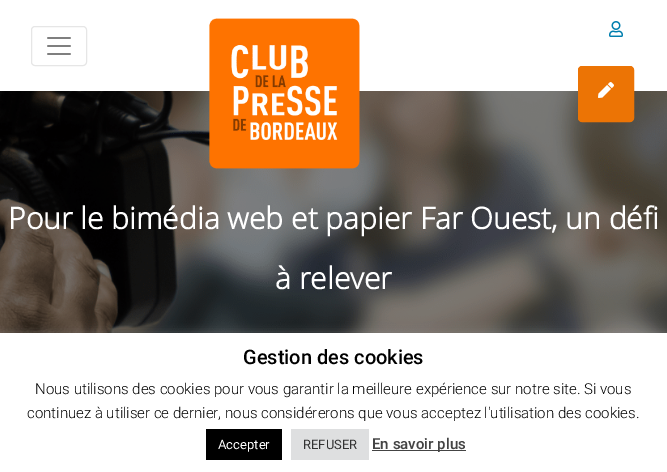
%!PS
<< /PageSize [667 472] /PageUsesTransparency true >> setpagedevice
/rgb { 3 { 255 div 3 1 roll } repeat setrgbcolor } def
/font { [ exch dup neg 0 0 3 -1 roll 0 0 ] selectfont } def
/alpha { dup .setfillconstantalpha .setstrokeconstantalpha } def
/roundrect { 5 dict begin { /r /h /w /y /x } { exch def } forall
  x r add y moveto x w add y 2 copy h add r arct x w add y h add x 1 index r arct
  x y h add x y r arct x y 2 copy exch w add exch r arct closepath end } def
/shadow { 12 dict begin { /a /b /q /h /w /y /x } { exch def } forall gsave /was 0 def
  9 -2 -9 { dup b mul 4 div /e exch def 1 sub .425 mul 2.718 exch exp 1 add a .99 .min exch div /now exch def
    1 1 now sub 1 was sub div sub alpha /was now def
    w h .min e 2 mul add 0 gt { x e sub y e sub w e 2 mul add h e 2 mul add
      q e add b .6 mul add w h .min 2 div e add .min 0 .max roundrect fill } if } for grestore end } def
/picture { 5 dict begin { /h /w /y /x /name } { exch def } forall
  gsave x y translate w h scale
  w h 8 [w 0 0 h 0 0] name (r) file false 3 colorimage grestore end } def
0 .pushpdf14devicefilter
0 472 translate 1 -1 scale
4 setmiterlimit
255 255 255 rgb
0 0 667 472 rectfill
230 230 230 rgb
31.5 26.5 55 39 3.5 roundrect stroke
(img/1.rgb) 47 37 24 18 picture
(img/5.rgb) 0 91 667 242 picture
(img/2.rgb) 209 18 151 151 picture
(img/3.rgb) 609 21 14 16 picture
236 116 5 rgb
578.5 66.5 55 55 3.5 roundrect gsave fill grestore
stroke
(img/4.rgb) 598 82 16 16 picture
172 171 171 rgb
0 332 667 139 0 5 0.3 shadow
[
  [0 333 667 139 255 255 255]
  [206 429 76 31 0 0 0]
  [291 429 78 31 222 223 224]
  [372 450 94 1 68 68 68]
] { aload pop rgb rectfill } forall
/OpenSans-Bold 30 font
255 255 255 rgb
8 229 moveto (Pour le bimédia web et papier Far Ouest, un défi) show
275 289 moveto (à relever) show
/Roboto-Medium 20 font
0 0 0 rgb
243 364 moveto (Gestion des cookies) show
/Roboto-Light 15 font
35 394 moveto (Nous utilisons des cookies pour vous garantir la meilleure expérience sur notre site. Si vous) show
27 418 moveto (continuez à utiliser ce dernier, nous considérerons que vous acceptez l'utilisation des cookies.) show
/Roboto-Regular 13 font
255 255 255 rgb
218 449 moveto (Accepter) show
51 51 51 rgb
303 449 moveto (REFUSER) show
/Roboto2-Medium 15 font
68 68 68 rgb
372 449 moveto (En savoir plus) show
.poppdf14devicefilter showpage
